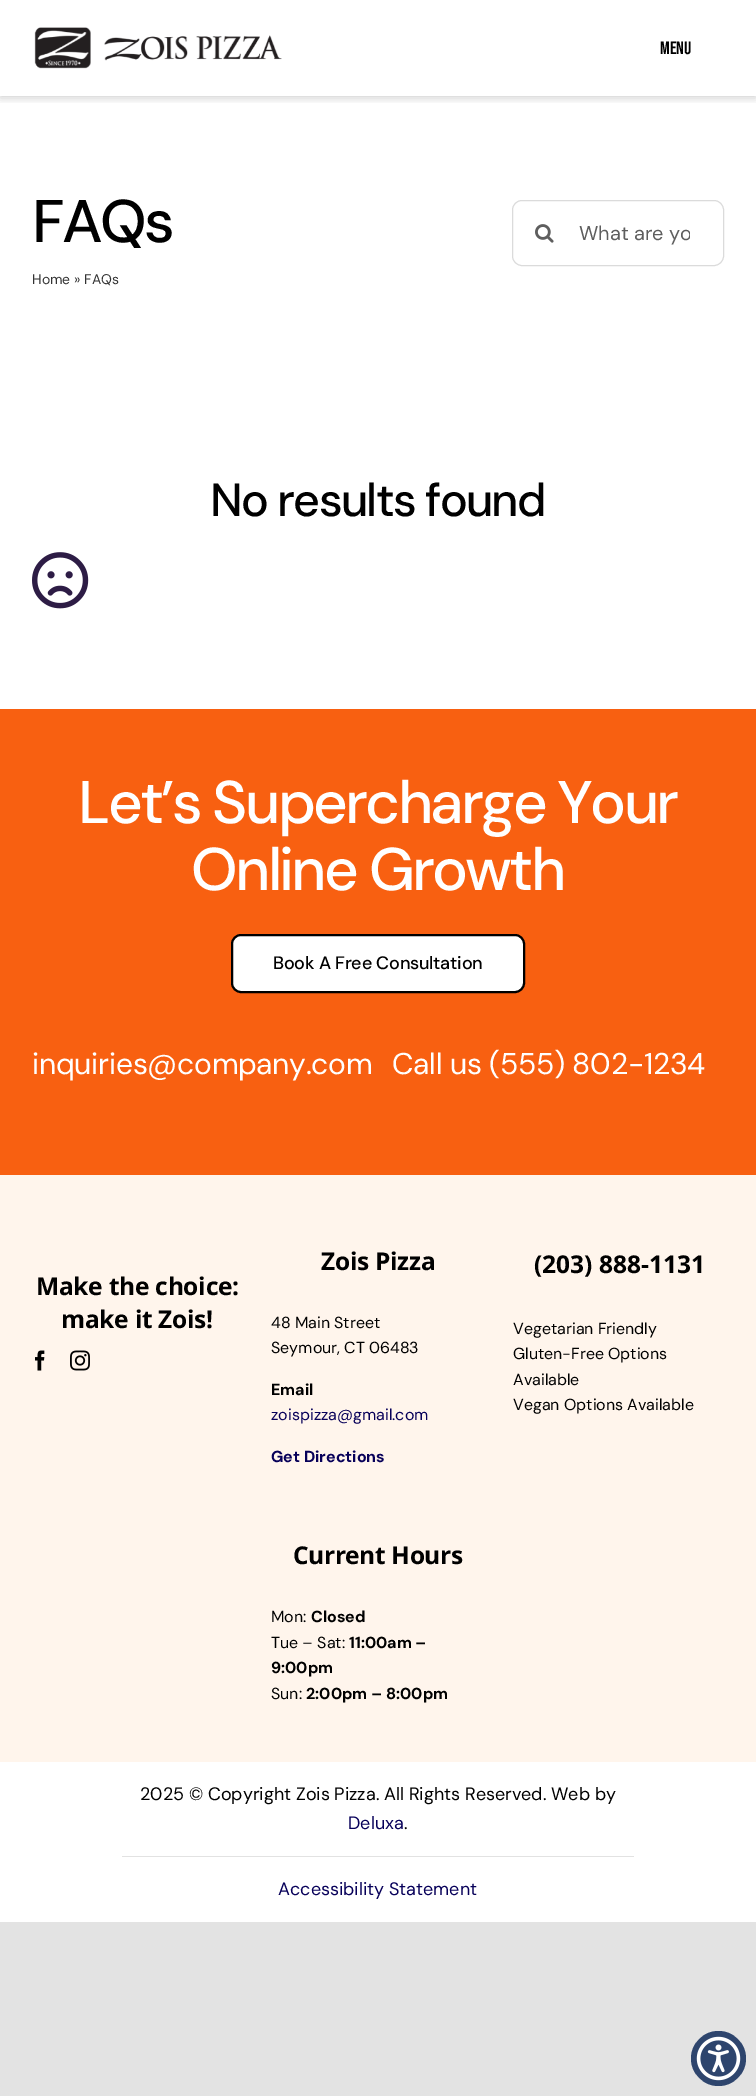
%!PS
<< /PageSize [756 2096] /PageUsesTransparency true >> setpagedevice
/rgb { 3 { 255 div 3 1 roll } repeat setrgbcolor } def
/font { [ exch dup neg 0 0 3 -1 roll 0 0 ] selectfont } def
/alpha { dup .setfillconstantalpha .setstrokeconstantalpha } def
/circle { newpath 0 360 arc closepath } def
/roundrect { 5 dict begin { /r /h /w /y /x } { exch def } forall
  x r add y moveto x w add y 2 copy h add r arct x w add y h add x 1 index r arct
  x y h add x y r arct x y 2 copy exch w add exch r arct closepath end } def
/shadow { 12 dict begin { /a /b /q /h /w /y /x } { exch def } forall gsave /was 0 def
  9 -2 -9 { dup b mul 4 div /e exch def 1 sub .425 mul 2.718 exch exp 1 add a .99 .min exch div /now exch def
    1 1 now sub 1 was sub div sub alpha /was now def
    w h .min e 2 mul add 0 gt { x e sub y e sub w e 2 mul add h e 2 mul add
      q e add b .6 mul add w h .min 2 div e add .min 0 .max roundrect fill } if } for grestore end } def
/picture { 5 dict begin { /h /w /y /x /name } { exch def } forall
  gsave x y translate w h scale
  w h 8 [w 0 0 h 0 0] name (r) file false 3 colorimage grestore end } def
0 .pushpdf14devicefilter
0 2096 translate 1 -1 scale
4 setmiterlimit
227 227 227 rgb
0 0 756 2096 rectfill
255 255 255 rgb
0 0 756 1922 rectfill
gsave
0 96 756 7 rectclip
0 0 0 rgb
0 2 756 96 0 4.5 0.18 shadow
grestore
(img/1.rgb) 34 27 248 42 picture
219 219 219 rgb
512.5 200.5 211 65 9.5 roundrect stroke
(img/2.rgb) 535 224 19 19 picture
(img/3.rgb) 32 552 57 57 picture
248 96 17 rgb
0 709 756 466 rectfill
255 255 255 rgb
232 935 292 57 9 roundrect gsave fill grestore
0 0 0 rgb
2 setlinewidth
stroke
255 245 236 rgb
0 1175 756 587 rectfill
(img/4.rgb) 35 1350 10 21 picture
(img/5.rgb) 70 1350 20 21 picture
226 226 226 rgb
122 1856 512 1 rectfill
46 69 109 rgb
718.5 2058.5 27.5 circle fill
(img/6.rgb) 696 2036 45 45 picture
/BebasNeue-Regular 18 font
0 0 0 rgb
660 54 moveto (Menu) show
/DMSans-Medium 60.1 font
32 242 moveto -2.75 0 (FAQs) ashow
/DMSans-Regular 14 font
51 51 51 rgb
32 284 moveto (Home » FAQs) show
gsave
579 220 111 26 rectclip
/DMSans-Regular 20 font
94 94 94 rgb
579 240 moveto (What are yo) show
grestore
/DMSans-Medium 46.5 font
0 0 0 rgb
210 516 moveto -1.7 0 (No results found) ashow
/DMSans-Medium 60.1 font
255 255 255 rgb
78 823 moveto -2.75 0 (Let’s Supercharge Your) ashow
191 890 moveto -2.75 0 (Online Growth) ashow
/DMSans-Medium 18 font
0 0 0 rgb
273 969 moveto -0.2 0 (Book A Free Consultation) ashow
/DMSans-Regular 30 font
255 255 255 rgb
32 1074 moveto -0.3 0 (inquiries@company.com) ashow
392 1074 moveto -0.3 0 (Call us \(555\) 802-1234) ashow
/OpenSans-Bold 24.5 font
0 0 0 rgb
36 1295 moveto -0.25 0 (Make the choice:) ashow
61 1328 moveto -0.25 0 (make it Zois!) ashow
321 1270 moveto -0.25 0 (Zois Pizza) ashow
/DMSans-Regular 16 font
271 1328 moveto (48 Main Street) show
271 1353 moveto (Seymour, CT 06483) show
/DMSans-Bold 16 font
271 1395 moveto (Email) show
/DMSans-Regular 16 font
7 0 89 rgb
271 1420 moveto (zoispizza@gmail.com) show
/DMSans-Bold 16 font
271 1462 moveto (Get Directions) show
/OpenSans-Bold 24.5 font
0 0 0 rgb
534 1273 moveto (\(203\) 888-1131) show
/DMSans-Regular 16 font
[
  [(Vegetarian Friendly) 513 1334]
  [(Gluten-Free Options) 513 1359]
  [(Available) 513 1385]
  [(Vegan Options Available) 513 1410]
] { aload pop moveto show } forall
/OpenSans-Bold 24.5 font
293 1564 moveto -0.4 0 (Current Hours) ashow
/DMSans-Regular 16 font
271 1622 moveto (Mon:) show
/DMSans-Bold 16 font
311 1622 moveto (Closed) show
/DMSans-Regular 16 font
271 1648 moveto (Tue – Sat:) show
/DMSans-Bold 16 font
349 1648 moveto (11:00am –) show
271 1673 moveto (9:00pm) show
/DMSans-Regular 16 font
271 1699 moveto (Sun:) show
/DMSans-Bold 16 font
306 1699 moveto (2:00pm – 8:00pm) show
/DMSans-Regular 18 font
140 1800 moveto (2025 © Copyright Zois Pizza. All Rights Reserved. Web by) show
7 0 89 rgb
348 1829 moveto (Deluxa) show
0 0 0 rgb
404 1829 moveto (.) show
7 0 89 rgb
278 1895 moveto (Accessibility Statement) show
.poppdf14devicefilter showpage
